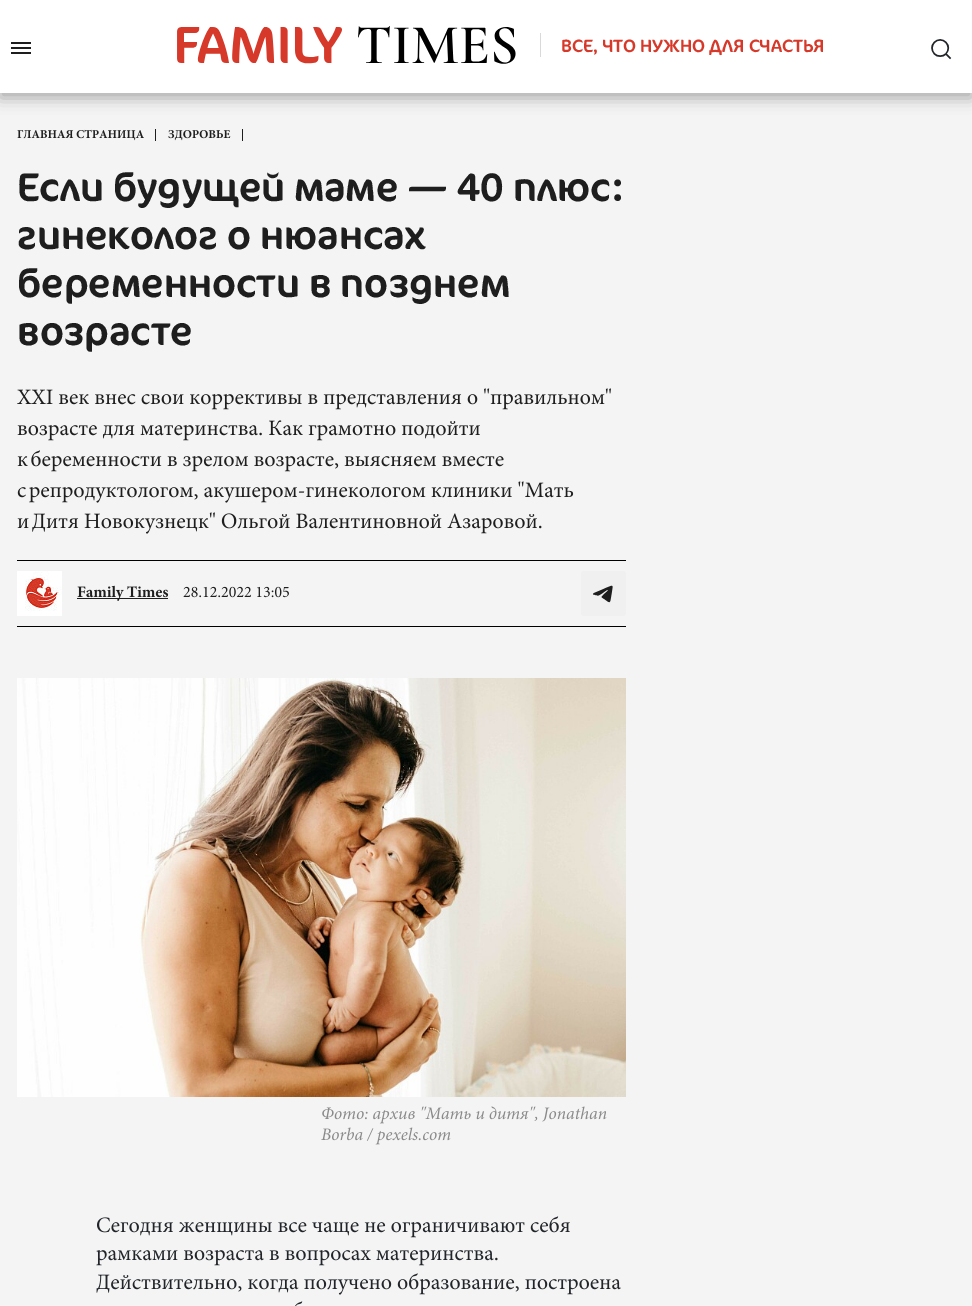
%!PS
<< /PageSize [972 1306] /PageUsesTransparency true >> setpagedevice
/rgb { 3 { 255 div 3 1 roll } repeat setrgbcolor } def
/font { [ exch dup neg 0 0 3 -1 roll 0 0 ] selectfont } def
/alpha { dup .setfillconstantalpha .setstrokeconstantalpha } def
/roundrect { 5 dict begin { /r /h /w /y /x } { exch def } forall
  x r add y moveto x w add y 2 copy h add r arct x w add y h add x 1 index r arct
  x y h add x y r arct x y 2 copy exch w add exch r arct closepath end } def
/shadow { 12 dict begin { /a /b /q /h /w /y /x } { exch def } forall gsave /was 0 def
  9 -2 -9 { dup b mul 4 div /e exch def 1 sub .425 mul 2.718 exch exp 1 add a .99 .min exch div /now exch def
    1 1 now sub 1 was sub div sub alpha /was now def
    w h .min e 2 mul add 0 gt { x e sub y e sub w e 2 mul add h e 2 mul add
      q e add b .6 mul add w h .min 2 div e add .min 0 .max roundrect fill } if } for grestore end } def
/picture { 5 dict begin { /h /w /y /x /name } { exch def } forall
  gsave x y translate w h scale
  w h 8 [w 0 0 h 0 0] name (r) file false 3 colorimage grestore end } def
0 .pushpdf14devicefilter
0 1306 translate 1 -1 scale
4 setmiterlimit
244 244 244 rgb
0 0 972 1306 rectfill
0 0 0 rgb
0 5 972 93 0 7.5 0.3 shadow
[
  [0 0 972 93 255 255 255]
  [11 47 20 2 30 30 30]
  [11 42 20 2 30 30 30]
  [11 52 20 2 30 30 30]
] { aload pop rgb rectfill } forall
(img/1.rgb) 177 26 339 38 picture
217 217 217 rgb
540 33 1 24 rectfill
(img/2.rgb) 931 39 21 21 picture
(img/3.rgb) 17 129 127 12 picture
30 30 30 rgb
155 129 1 12 rectfill
(img/4.rgb) 168 130 63 11 picture
242 129 1 12 rectfill
(img/5.rgb) 17 388 594 22 picture
(img/6.rgb) 17 420 463 21 picture
(img/7.rgb) 17 450 487 22 picture
(img/8.rgb) 17 481 557 22 picture
(img/9.rgb) 17 512 525 22 picture
0 0 0 rgb
17 560 609 1 rectfill
17 626 609 1 rectfill
(img/10.rgb) 17 571 45 45 picture
30 30 30 rgb
77 598 91 1 rectfill
(img/11.rgb) 77 585 92 16 picture
(img/12.rgb) 183 586 106 12 picture
240 240 240 rgb
581 571 45 45 3 roundrect fill
(img/13.rgb) 593 585 20 18 picture
(img/14.rgb) 17 678 609 419 picture
(img/15.rgb) 322 1106 285 18 picture
(img/16.rgb) 321 1127 130 18 picture
(img/17.rgb) 97 1216 473 22 picture
(img/18.rgb) 96 1250 402 16 picture
(img/19.rgb) 96 1273 525 22 picture
(img/20.rgb) 295 1301 8 5 picture
/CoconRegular-Regular 18 font
214 57 42 rgb
561 52 moveto (ВСЕ, ЧТО НУЖНО ДЛЯ СЧАСТЬЯ) show
/CoconRegular-Regular 40 font
30 30 30 rgb
[
  [(Если будущей маме — 40 плюс:) 17 201]
  [(гинеколог о нюансах) 17 249]
  [(беременности в позднем) 17 297]
  [(возрасте) 17 345]
] { aload pop moveto show } forall
.poppdf14devicefilter showpage
